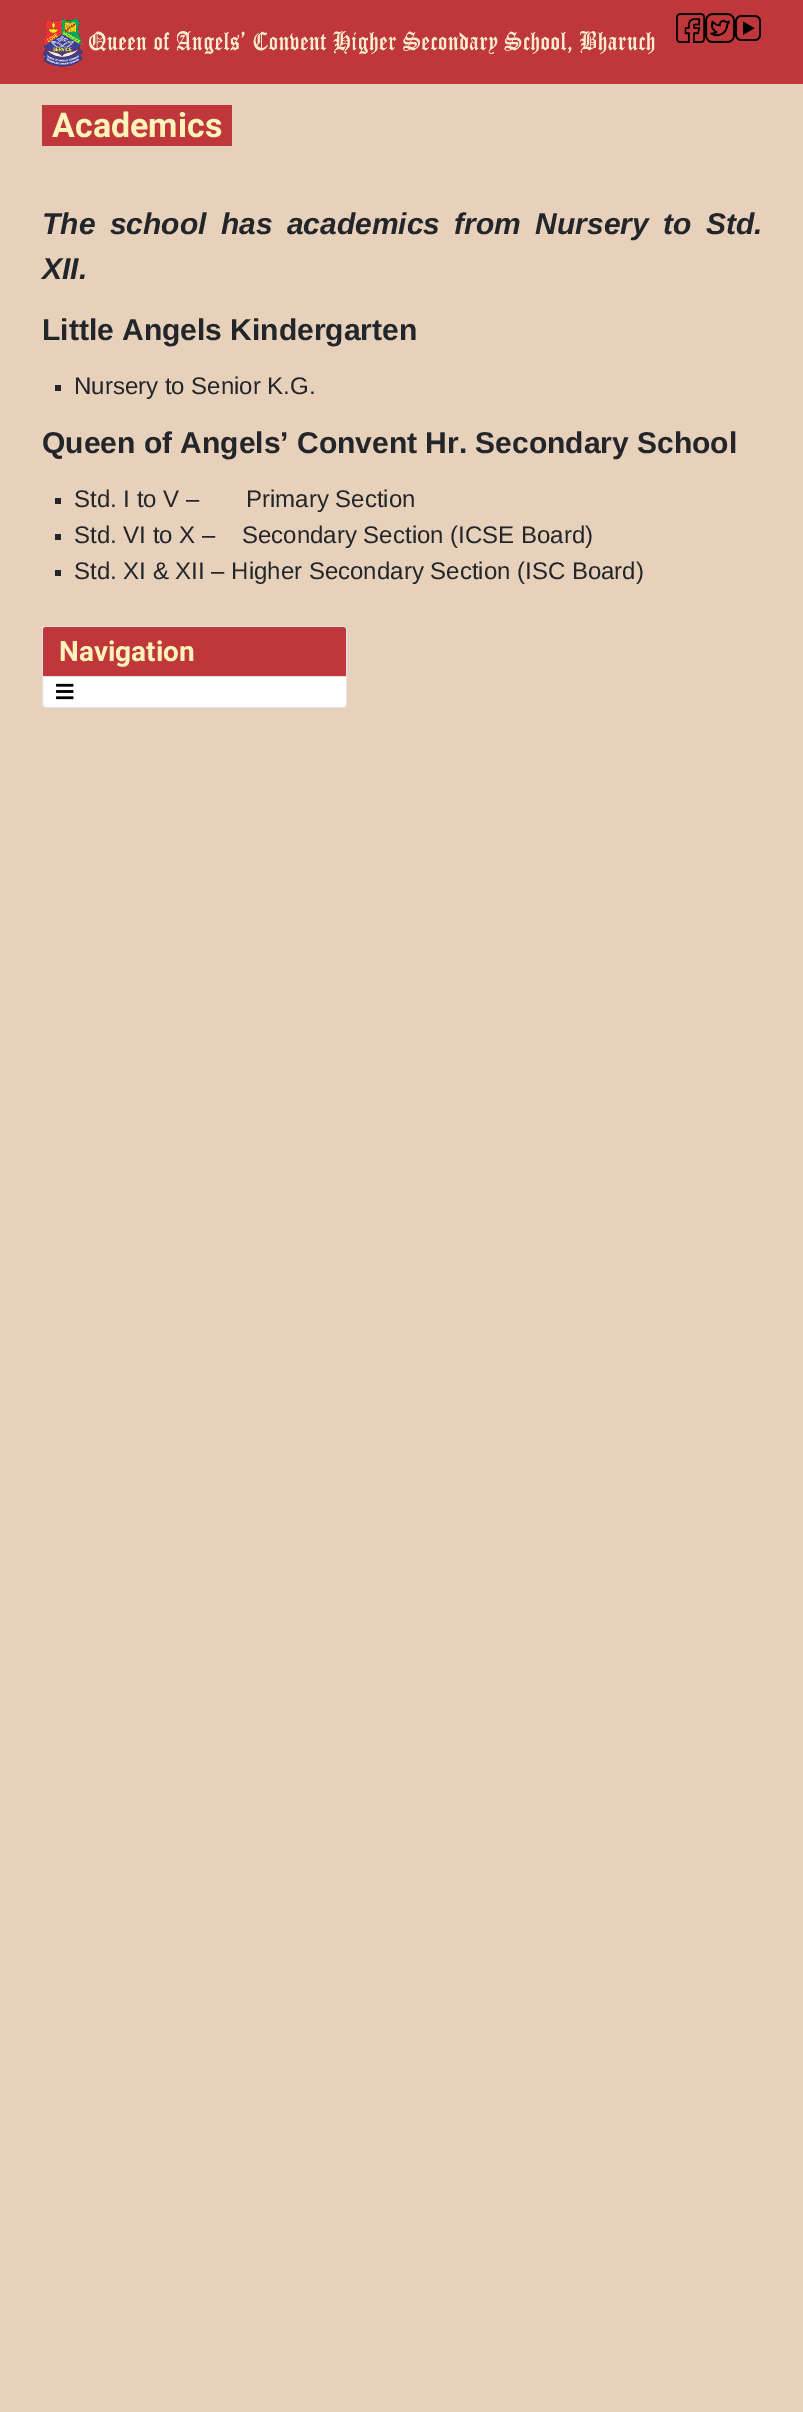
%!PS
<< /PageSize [803 2412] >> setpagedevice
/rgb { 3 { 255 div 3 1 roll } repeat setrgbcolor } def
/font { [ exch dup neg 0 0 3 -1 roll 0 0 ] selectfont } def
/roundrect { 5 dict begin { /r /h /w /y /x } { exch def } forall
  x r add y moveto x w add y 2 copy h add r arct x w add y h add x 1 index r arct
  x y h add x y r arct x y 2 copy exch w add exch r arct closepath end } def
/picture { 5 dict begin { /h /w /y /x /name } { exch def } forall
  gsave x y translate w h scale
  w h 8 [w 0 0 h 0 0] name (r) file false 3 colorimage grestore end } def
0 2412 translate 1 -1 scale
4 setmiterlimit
231 209 187 rgb
0 0 803 2412 rectfill
191 55 59 rgb
0 0 803 84 rectfill
(img/1.rgb) 42 17 613 50 picture
(img/2.rgb) 676 13 29 30 picture
(img/3.rgb) 705 13 30 30 picture
(img/4.rgb) 735 15 26 26 picture
[
  [42 105 190 41 191 55 59]
  [55 385 6 6 34 38 42]
  [55 498 6 6 34 38 42]
  [55 534 6 6 34 38 42]
  [55 570 6 6 34 38 42]
] { aload pop rgb rectfill } forall
255 255 255 rgb
42.5 626.5 304 81 3.5 roundrect gsave fill grestore
223 227 231 rgb
stroke
191 55 59 rgb
46 627 moveto 343 627 lineto 344.5 627 346 628.5 346 630 curveto 346 677 lineto 43 677 lineto 43 630 lineto 43 628.5 44.5 627 46 627 curveto closepath fill
223 227 231 rgb
43 676 303 1 rectfill
(img/5.rgb) 56 683 18 17 picture
/Roboto-Bold 34 font
255 243 186 rgb
52 137 moveto (Academics) show
/LiberationSans-BoldItalic 30 font
34 38 42 rgb
42 234 moveto 6 0 32 (The school has academics from Nursery to Std.) widthshow
42 279 moveto (XII.) show
/LiberationSans-Bold 30 font
42 340 moveto (Little Angels Kindergarten) show
/LiberationSans-Regular 24 font
74 394 moveto (Nursery to Senior K.G.) show
/LiberationSans-Bold 30 font
42 453 moveto (Queen of Angels’ Convent Hr. Secondary School) show
/LiberationSans-Regular 24 font
[
  [(Std. I to V –       Primary Section) 74 507]
  [(Std. VI to X –    Secondary Section \(ICSE Board\)) 74 543]
  [(Std. XI & XII – Higher Secondary Section \(ISC Board\)) 74 579]
] { aload pop moveto show } forall
/Roboto-Bold 28 font
255 243 186 rgb
59 661 moveto (Navigation) show
showpage
